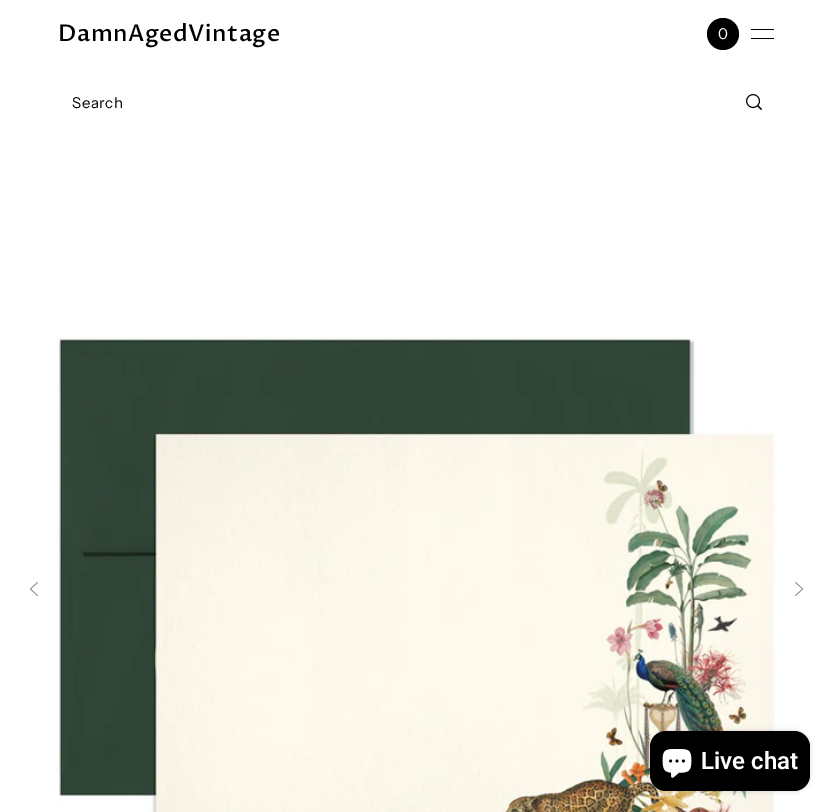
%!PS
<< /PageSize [832 812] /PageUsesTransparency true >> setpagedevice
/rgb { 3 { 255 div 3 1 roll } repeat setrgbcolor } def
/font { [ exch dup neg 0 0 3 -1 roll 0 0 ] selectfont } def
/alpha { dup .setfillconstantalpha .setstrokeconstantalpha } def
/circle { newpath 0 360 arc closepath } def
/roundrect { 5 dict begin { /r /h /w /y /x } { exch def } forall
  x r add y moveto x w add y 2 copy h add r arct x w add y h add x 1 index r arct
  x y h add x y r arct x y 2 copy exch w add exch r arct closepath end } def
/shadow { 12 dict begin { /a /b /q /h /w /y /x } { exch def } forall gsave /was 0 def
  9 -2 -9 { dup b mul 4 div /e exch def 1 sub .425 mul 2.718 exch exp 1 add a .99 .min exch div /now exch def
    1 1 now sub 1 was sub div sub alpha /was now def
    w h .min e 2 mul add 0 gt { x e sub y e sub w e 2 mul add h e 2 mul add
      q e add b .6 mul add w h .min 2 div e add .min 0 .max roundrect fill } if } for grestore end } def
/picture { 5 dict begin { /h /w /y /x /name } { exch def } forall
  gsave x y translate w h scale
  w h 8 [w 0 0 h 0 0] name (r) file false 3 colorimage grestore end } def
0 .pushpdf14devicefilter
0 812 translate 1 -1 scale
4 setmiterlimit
255 255 255 rgb
0 0 832 812 rectfill
0 0 0 rgb
723 34 16 circle fill
751 29 23 1 0.5 roundrect fill
751 38 23 1 0.5 roundrect fill
(img/1.rgb) 746 94 16 16 picture
(img/2.rgb) 30 582 8 14 picture
(img/3.rgb) 57 336 718 476 picture
(img/4.rgb) 795 582 8 14 picture
650 731 160 60 16 2.5 0.15 shadow
650 731 160 60 16 roundrect fill
(img/5.rgb) 662 749 30 29 picture
/ProzaLibre-Medium 23 font
58 41 moveto 0.5 0 (DamnAgedVintage) ashow
/InstrumentSans-Regular 15 font
255 255 255 rgb
718 39 moveto 0.5 0 (0) ashow
0 0 0 rgb
72 108 moveto 0.5 0 (Search) ashow
/Roboto-SemiBold 24 font
255 255 255 rgb
701 769 moveto (Live chat) show
.poppdf14devicefilter showpage
